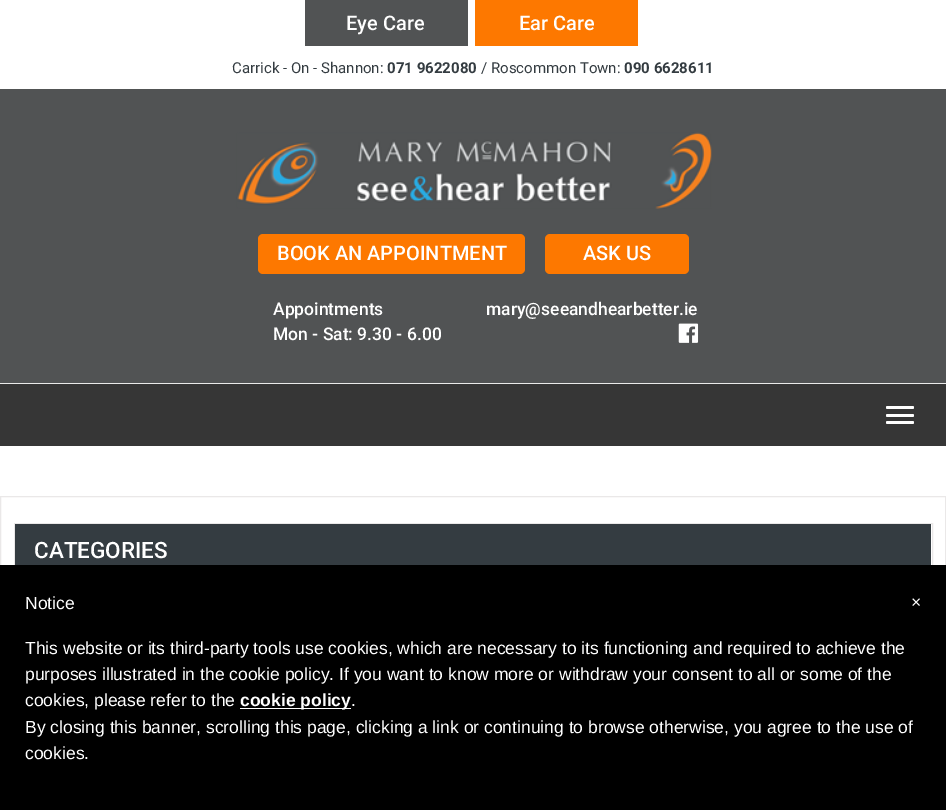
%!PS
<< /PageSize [946 810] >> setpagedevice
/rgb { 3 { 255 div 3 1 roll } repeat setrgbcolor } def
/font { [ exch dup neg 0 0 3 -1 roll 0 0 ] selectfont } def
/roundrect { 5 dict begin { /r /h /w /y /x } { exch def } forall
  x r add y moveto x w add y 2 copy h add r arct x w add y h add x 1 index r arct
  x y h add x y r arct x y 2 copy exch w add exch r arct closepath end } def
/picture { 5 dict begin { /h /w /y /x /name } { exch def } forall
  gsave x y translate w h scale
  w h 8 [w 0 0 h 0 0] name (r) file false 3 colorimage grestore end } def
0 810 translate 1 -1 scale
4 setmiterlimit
255 255 255 rgb
0 0 946 810 rectfill
[
  [305 0 163 46 81 83 84]
  [475 0 163 46 253 120 0]
  [0 89 946 294 81 83 84]
] { aload pop rgb rectfill } forall
(img/1.rgb) 236 132 476 77 picture
253 120 0 rgb
258 234 267 40 5 roundrect fill
545 234 144 40 5 roundrect fill
(img/2.rgb) 678 323 21 20 picture
234 234 234 rgb
0 383 946 1 rectfill
54 54 54 rgb
0 384 946 62 rectfill
255 255 255 rgb
886 406 28 3 1.5 roundrect fill
886 414 28 3 1.5 roundrect fill
886 421 28 3 1.5 roundrect fill
234 232 232 rgb
0.5 496.5 945 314 rectstroke
14.5 523.5 918 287 rectstroke
[
  [15 524 916 41 52 60 65]
  [0 565 946 245 0 0 0]
  [240 708 111 1 255 255 255]
] { aload pop rgb rectfill } forall
/Roboto-Medium 20 font
346 30 moveto (Eye Care) show
519 30 moveto (Ear Care) show
/Roboto-Regular 15 font
52 60 65 rgb
232 73 moveto (Carrick - On - Shannon:) show
/Roboto-Bold 15 font
387 73 moveto (071 9622080) show
/Roboto-Regular 15 font
481 73 moveto (/ Roscommon Town:) show
/Roboto-Bold 15 font
624 73 moveto (090 6628611) show
/Roboto-Medium 20 font
255 255 255 rgb
277 260 moveto (BOOK AN APPOINTMENT) show
583 260 moveto (ASK US) show
/Roboto-Medium 17.5 font
[
  [(Appointments) 273 315]
  [(Mon - Sat: 9.30 - 6.00) 273 340]
  [(mary@seeandhearbetter.ie) 486 315]
] { aload pop moveto show } forall
/Roboto-Medium 22.5 font
34 558 moveto (CATEGORIES) show
/LiberationSans-Regular 17.5 font
[
  [(Notice) 25 609]
  [(This website or its third-party tools use cookies, which are necessary to its functioning and required to achieve the) 25 654]
  [(purposes illustrated in the cookie policy. If you want to know more or withdraw your consent to all or some of the) 25 680]
  [(cookies, please refer to the) 25 706]
] { aload pop moveto show } forall
/LiberationSans-Bold 17.5 font
240 706 moveto (cookie policy) show
/LiberationSans-Regular 17.5 font
[
  [(.) 351 706]
  [(By closing this banner, scrolling this page, clicking a link or continuing to browse otherwise, you agree to the use of) 25 733]
  [(cookies.) 25 759]
  [(×) 911 608]
] { aload pop moveto show } forall
showpage
